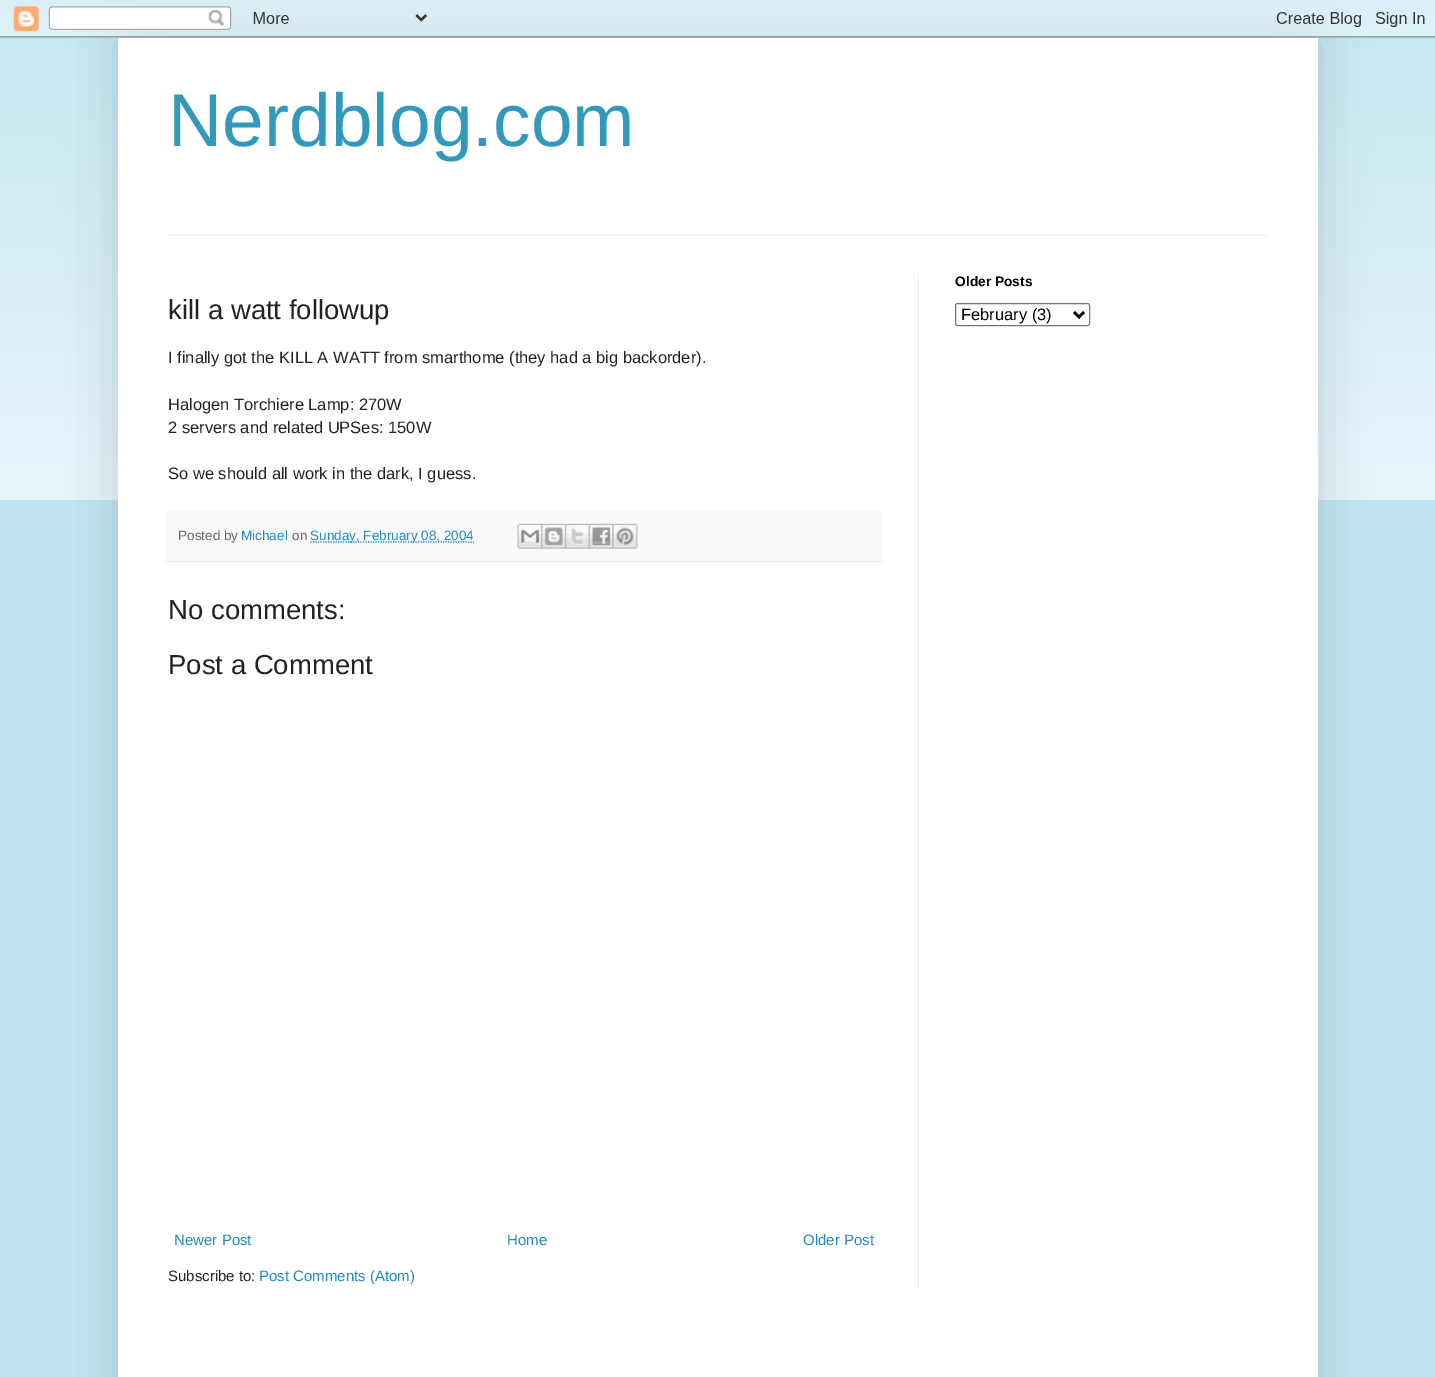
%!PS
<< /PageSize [1435 1377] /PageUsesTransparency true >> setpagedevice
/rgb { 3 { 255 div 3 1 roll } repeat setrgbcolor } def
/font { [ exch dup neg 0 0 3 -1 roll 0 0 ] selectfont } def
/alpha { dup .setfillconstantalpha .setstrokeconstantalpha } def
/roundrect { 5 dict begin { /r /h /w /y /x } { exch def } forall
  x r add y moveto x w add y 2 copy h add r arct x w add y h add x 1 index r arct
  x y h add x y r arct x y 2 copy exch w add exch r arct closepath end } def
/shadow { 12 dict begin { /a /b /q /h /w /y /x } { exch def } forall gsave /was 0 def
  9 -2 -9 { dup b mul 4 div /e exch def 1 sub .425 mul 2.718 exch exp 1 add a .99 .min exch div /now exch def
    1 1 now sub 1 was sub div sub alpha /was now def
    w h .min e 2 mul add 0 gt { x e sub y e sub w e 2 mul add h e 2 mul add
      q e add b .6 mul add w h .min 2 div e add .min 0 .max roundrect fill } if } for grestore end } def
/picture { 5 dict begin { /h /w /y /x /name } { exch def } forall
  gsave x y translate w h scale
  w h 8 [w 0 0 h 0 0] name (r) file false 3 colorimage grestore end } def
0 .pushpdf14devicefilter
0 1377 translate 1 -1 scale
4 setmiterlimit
193 229 242 rgb
0 0 1435 1377 rectfill
(img/2.rgb) 0 13 1435 487 picture
0 0 0 rgb
118 38 1200 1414 0 25 0.15 shadow
(img/1.rgb) 0 0 1435 38 picture
[
  [118 38 1200 1339 255 255 255]
  [168 235 1100 1 238 238 238]
  [918 274 1 1014 238 238 238]
  [165 511 718 52 249 249 249]
  [165 561 718 1 238 238 238]
] { aload pop rgb rectfill } forall
34 136 187 rgb
1.2 setlinewidth
[1.25 1.25] 0 setdash
310.5 542 moveto 474 542 lineto stroke
(img/3.rgb) 517 523 26 26 picture
(img/4.rgb) 541 523 26 26 picture
(img/5.rgb) 565 523 25 26 picture
(img/6.rgb) 588 523 26 26 picture
(img/7.rgb) 612 523 26 26 picture
118 118 118 rgb
1 setlinewidth
[] 0 setdash
955.5 303.5 134 22 2 roundrect stroke
0 0 0 rgb
2.5 setlinewidth
1074 312 moveto 1079 317 lineto 1084 312 lineto stroke
/LiberationSans-Regular 75 font
51 153 187 rgb
168 146 moveto (Nerdblog.com) show
/LiberationSans-Regular 27.5 font
34 34 34 rgb
168 319 moveto (kill a watt followup) show
/LiberationSans-Regular 16.5 font
[
  [(I finally got the KILL A WATT from smarthome \(they had a big backorder\).) 168 363]
  [(Halogen Torchiere Lamp: 270W) 168 410]
  [(2 servers and related UPSes: 150W) 168 433]
  [(So we should all work in the dark, I guess.) 168 479]
] { aload pop moveto show } forall
/LiberationSans-Regular 13.5 font
102 102 102 rgb
178 540 moveto (Posted by) show
34 136 187 rgb
241 540 moveto (Michael) show
102 102 102 rgb
292 540 moveto (on) show
34 136 187 rgb
310 540 moveto (Sunday, February 08, 2004) show
/LiberationSans-Regular 27.5 font
34 34 34 rgb
168 619 moveto (No comments:) show
168 674 moveto (Post a Comment) show
/LiberationSans-Regular 15 font
34 136 187 rgb
[
  [(Newer Post) 174 1245]
  [(Home) 507 1245]
  [(Older Post) 803 1245]
] { aload pop moveto show } forall
34 34 34 rgb
168 1281 moveto (Subscribe to:) show
34 136 187 rgb
259 1281 moveto (Post Comments \(Atom\)) show
/LiberationSans-Bold 13.75 font
0 0 0 rgb
955 286 moveto (Older Posts) show
/LiberationSans-Regular 16.5 font
961 320 moveto (February \(3\)) show
.poppdf14devicefilter showpage
